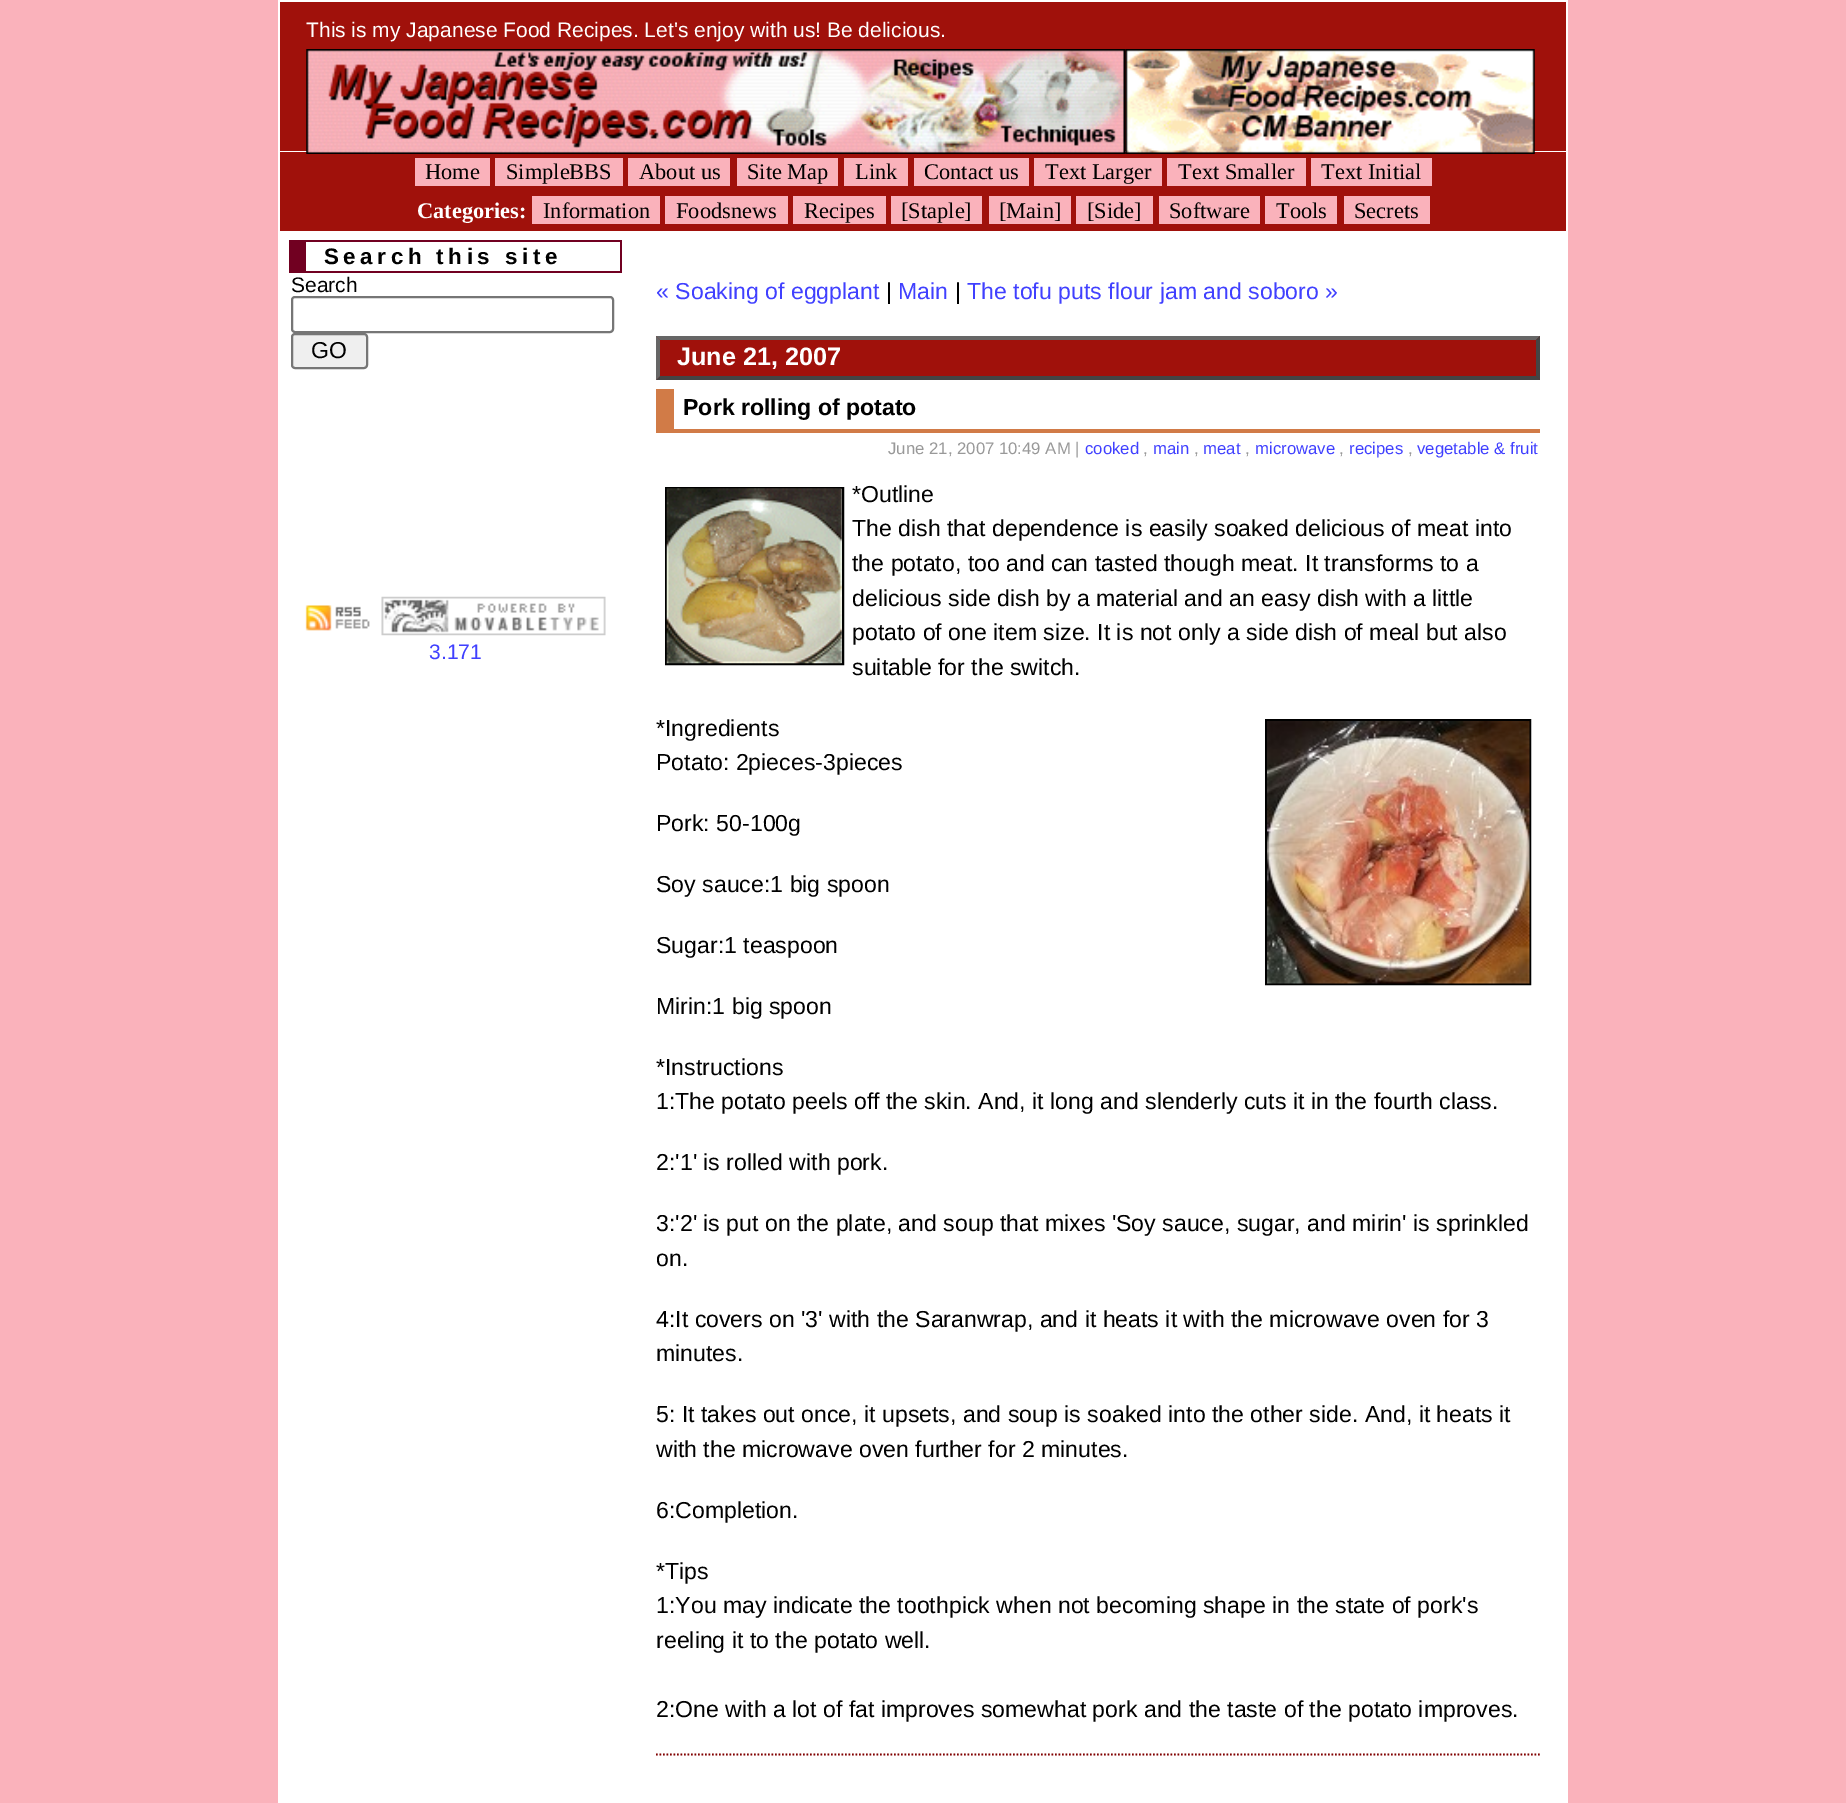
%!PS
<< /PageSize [1846 1803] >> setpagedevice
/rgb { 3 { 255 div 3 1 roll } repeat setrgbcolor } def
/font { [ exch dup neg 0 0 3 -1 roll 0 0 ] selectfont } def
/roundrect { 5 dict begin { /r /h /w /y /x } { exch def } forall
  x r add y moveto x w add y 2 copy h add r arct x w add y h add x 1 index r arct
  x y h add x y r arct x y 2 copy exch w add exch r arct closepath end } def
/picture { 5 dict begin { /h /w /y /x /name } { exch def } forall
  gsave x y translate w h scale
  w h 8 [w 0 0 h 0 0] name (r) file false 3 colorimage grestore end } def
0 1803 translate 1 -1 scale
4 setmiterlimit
250 178 187 rgb
0 0 1846 1803 rectfill
[
  [278 0 1290 1803 255 255 255]
  [280 2 1286 149 160 17 11]
  [280 152 1286 79 160 17 11]
] { aload pop rgb rectfill } forall
(img/1.rgb) 306 49 820 105 picture
(img/2.rgb) 1125 49 410 105 picture
[
  [415 158 75 28 250 178 187]
  [495 158 128 28 250 178 187]
  [628 158 102 28 250 178 187]
  [737 158 101 28 250 178 187]
  [844 158 64 28 250 178 187]
  [914 158 115 28 250 178 187]
  [1034 158 128 28 250 178 187]
  [1167 158 139 28 250 178 187]
  [1311 158 121 28 250 178 187]
  [532 196 128 28 250 178 187]
  [665 196 123 28 250 178 187]
  [793 196 93 28 250 178 187]
  [891 196 91 28 250 178 187]
  [989 196 82 28 250 178 187]
  [1076 196 77 28 250 178 187]
  [1159 196 101 28 250 178 187]
  [1265 196 72 28 250 178 187]
  [1344 196 86 28 250 178 187]
  [306 240 315 2 113 0 33]
  [620 240 2 33 113 0 33]
  [306 271 315 2 113 0 33]
  [289 240 17 33 113 0 33]
] { aload pop rgb rectfill } forall
118 118 118 rgb
2 setlinewidth
292 297 321 35 3 roundrect stroke
239 239 239 rgb
292 334 75 34 3 roundrect gsave fill grestore
118 118 118 rgb
stroke
(img/3.rgb) 305 605 65 26 picture
(img/4.rgb) 381 596 225 40 picture
160 17 11 rgb
656 336 884 44 rectfill
102 102 102 rgb
656 336 moveto 1540 336 lineto 1536 340 lineto 660 340 lineto closepath fill
68 68 68 rgb
1540 336 moveto 1540 380 lineto 1536 376 lineto 1536 340 lineto closepath fill
1540 380 moveto 656 380 lineto 660 376 lineto 1536 376 lineto closepath fill
102 102 102 rgb
656 380 moveto 656 336 lineto 660 340 lineto 660 376 lineto closepath fill
209 123 71 rgb
656 429 884 4 rectfill
656 389 18 40 rectfill
0 0 0 rgb
666 488 177 176 rectstroke
(img/5.rgb) 666 488 176 176 picture
1266 720 264 264 rectstroke
(img/6.rgb) 1267 721 263 263 picture
128 0 0 rgb
1.8 setlinewidth
[1.75 1.75] 0 setdash
656 1754.5 moveto 1540 1754.5 lineto stroke
/LiberationSans-Regular 21 font
255 255 255 rgb
306 37 moveto (This is my Japanese Food Recipes. Let's enjoy with us! Be delicious.) show
/LiberationSerif-Regular 22.4 font
0 0 0 rgb
[
  [(Home) 425 179]
  [(SimpleBBS) 506 179]
  [(About us) 639 179]
  [(Site Map) 747 179]
  [(Link) 855 179]
  [(Contact us) 924 179]
  [(Text Larger) 1045 179]
  [(Text Smaller) 1178 179]
  [(Text Initial) 1321 179]
] { aload pop moveto show } forall
/LiberationSerif-Bold 22.4 font
255 255 255 rgb
417 218 moveto (Categories:) show
/LiberationSerif-Regular 22.4 font
0 0 0 rgb
[
  [(Information) 543 218]
  [(Foodsnews) 676 218]
  [(Recipes) 804 218]
  [([Staple]) 901 218]
  [([Main]) 999 218]
  [([Side]) 1087 218]
  [(Software) 1169 218]
  [(Tools) 1276 218]
  [(Secrets) 1354 218]
] { aload pop moveto show } forall
/LiberationSans-Bold 22.4 font
324 264 moveto 4.5 0 (Search this site) ashow
/LiberationSans-Regular 21 font
291 292 moveto (Search) show
/LiberationSans-Regular 23 font
311 358 moveto (GO) show
/LiberationSans-Regular 21 font
64 64 255 rgb
429 659 moveto (3.171) show
/LiberationSans-Regular 23.1 font
656 299 moveto (« Soaking of eggplant) show
0 0 0 rgb
886 299 moveto (|) show
64 64 255 rgb
898 299 moveto (Main) show
0 0 0 rgb
955 299 moveto (|) show
64 64 255 rgb
967 299 moveto (The tofu puts flour jam and soboro ») show
/LiberationSans-Bold 25.25 font
255 255 255 rgb
677 365 moveto (June 21, 2007) show
/LiberationSans-Bold 23.1 font
0 0 0 rgb
683 415 moveto (Pork rolling of potato) show
/LiberationSans-Regular 16.75 font
153 153 153 rgb
888 454 moveto (June 21, 2007 10:49 AM |) show
64 64 255 rgb
1085 454 moveto (cooked) show
153 153 153 rgb
1143 454 moveto (,) show
64 64 255 rgb
1153 454 moveto (main) show
153 153 153 rgb
1194 454 moveto (,) show
64 64 255 rgb
1203 454 moveto (meat) show
153 153 153 rgb
1245 454 moveto (,) show
64 64 255 rgb
1255 454 moveto (microwave) show
153 153 153 rgb
1339 454 moveto (,) show
64 64 255 rgb
1349 454 moveto (recipes) show
153 153 153 rgb
1408 454 moveto (,) show
64 64 255 rgb
1417 454 moveto (vegetable & fruit) show
/LiberationSans-Regular 23.1 font
0 0 0 rgb
[
  [(*Outline) 852 502]
  [(The dish that dependence is easily soaked delicious of meat into) 852 536]
  [(the potato, too and can tasted though meat. It transforms to a) 852 571]
  [(delicious side dish by a material and an easy dish with a little) 852 606]
  [(potato of one item size. It is not only a side dish of meal but also) 852 640]
  [(suitable for the switch.) 852 675]
  [(*Ingredients) 656 736]
  [(Potato: 2pieces-3pieces) 656 770]
  [(Pork: 50-100g) 656 831]
  [(Soy sauce:1 big spoon) 656 892]
  [(Sugar:1 teaspoon) 656 953]
  [(Mirin:1 big spoon) 656 1014]
  [(*Instructions) 656 1075]
  [(1:The potato peels off the skin. And, it long and slenderly cuts it in the fourth class.) 656 1109]
  [(2:'1' is rolled with pork.) 656 1170]
  [(3:'2' is put on the plate, and soup that mixes 'Soy sauce, sugar, and mirin' is sprinkled) 656 1231]
  [(on.) 656 1266]
  [(4:It covers on '3' with the Saranwrap, and it heats it with the microwave oven for 3) 656 1327]
  [(minutes.) 656 1361]
  [(5: It takes out once, it upsets, and soup is soaked into the other side. And, it heats it) 656 1422]
  [(with the microwave oven further for 2 minutes.) 656 1457]
  [(6:Completion.) 656 1518]
  [(*Tips) 656 1579]
  [(1:You may indicate the toothpick when not becoming shape in the state of pork's) 656 1613]
  [(reeling it to the potato well.) 656 1648]
  [(2:One with a lot of fat improves somewhat pork and the taste of the potato improves.) 656 1717]
] { aload pop moveto show } forall
showpage
